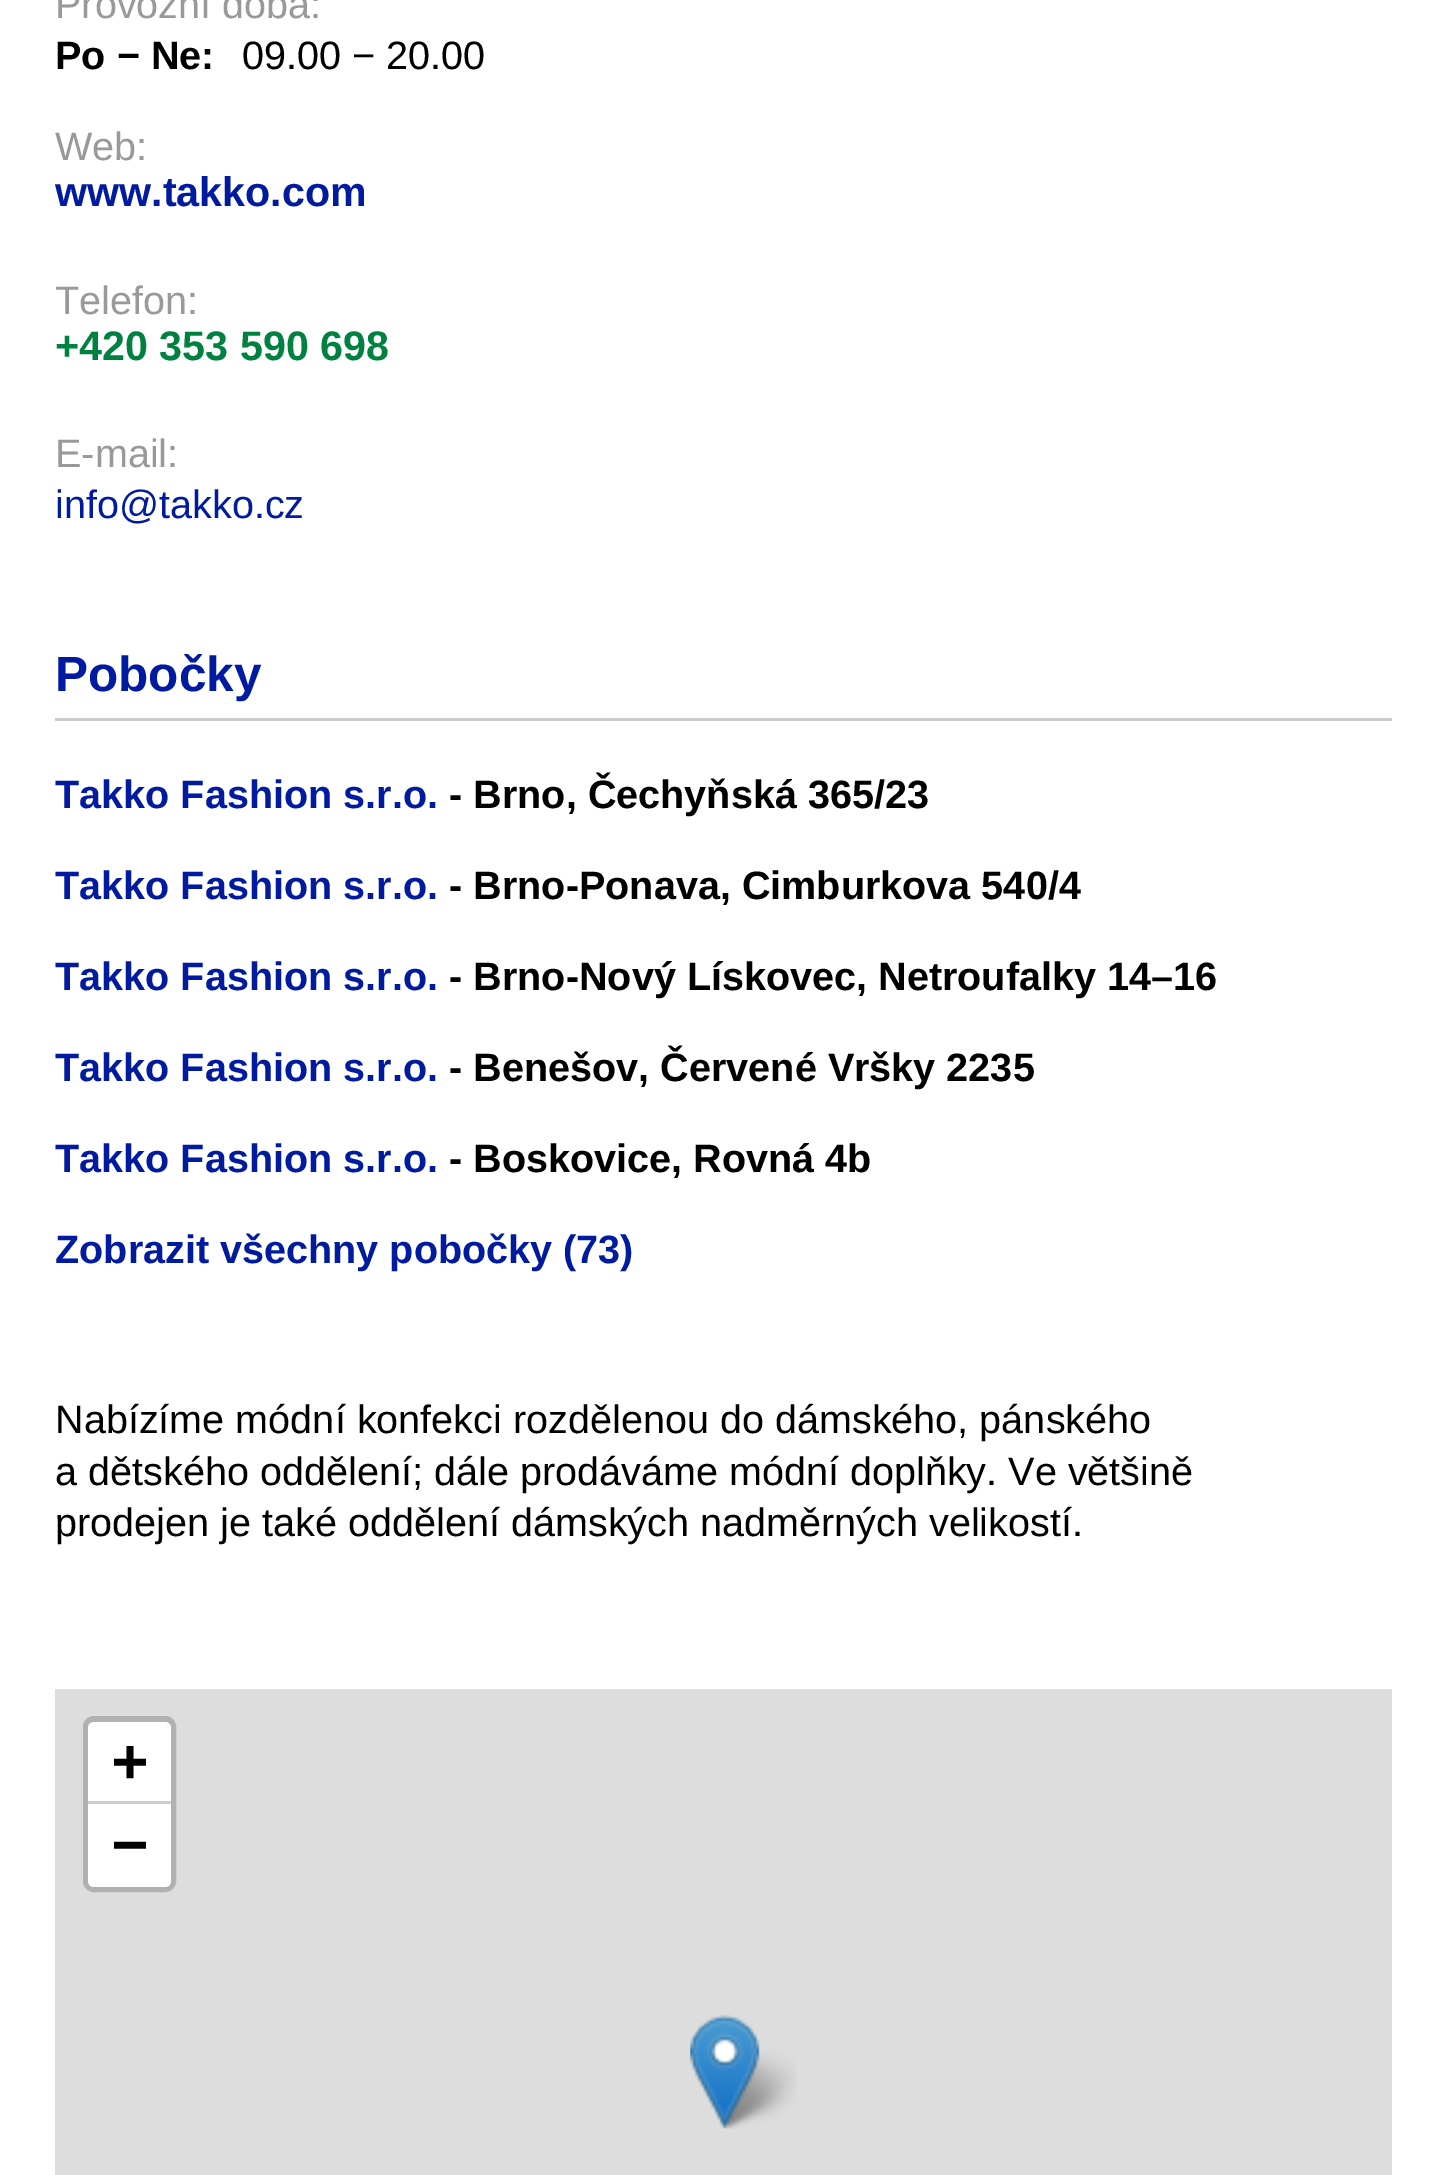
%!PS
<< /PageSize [1446 2175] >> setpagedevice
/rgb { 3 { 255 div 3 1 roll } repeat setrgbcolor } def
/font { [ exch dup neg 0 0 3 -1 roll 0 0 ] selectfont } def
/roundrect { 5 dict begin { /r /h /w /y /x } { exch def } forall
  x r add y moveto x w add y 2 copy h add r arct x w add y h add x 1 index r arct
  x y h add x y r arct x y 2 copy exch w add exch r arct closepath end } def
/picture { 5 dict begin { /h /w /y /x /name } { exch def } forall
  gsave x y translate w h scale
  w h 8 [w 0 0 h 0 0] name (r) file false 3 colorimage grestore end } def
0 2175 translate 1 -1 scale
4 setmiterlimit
255 255 255 rgb
0 0 1446 2175 rectfill
204 204 204 rgb
55 718 1337 3 rectfill
221 221 221 rgb
55 1689 1337 486 rectfill
177 177 177 rgb
6 setlinewidth
86 1719 87 170 8 roundrect stroke
255 255 255 rgb
94 1722 moveto 165 1722 lineto 168.5 1722 171 1724.5 171 1728 curveto 171 1804 lineto 88 1804 lineto 88 1728 lineto 88 1724.5 90.5 1722 94 1722 curveto closepath fill
204 204 204 rgb
88 1801 83 3 rectfill
255 255 255 rgb
88 1804 moveto 171 1804 lineto 171 1881 lineto 171 1884.5 168.5 1887 165 1887 curveto 94 1887 lineto 90.5 1887 88 1884.5 88 1881 curveto closepath fill
(img/2.rgb) 715 2050 82 79 picture
(img/1.rgb) 690 2014 70 115 picture
/LiberationSans-Regular 39.6 font
153 153 153 rgb
55 18 moveto (Provozní doba:) show
/LiberationSans-Bold 39.6 font
0 0 0 rgb
55 69 moveto (Po − Ne:) show
/LiberationSans-Regular 39.6 font
242 69 moveto (09.00 − 20.00) show
153 153 153 rgb
55 160 moveto (Web:) show
/LiberationSans-Bold 41.25 font
0 27 160 rgb
55 206 moveto (www.takko.com) show
/LiberationSans-Regular 39.6 font
153 153 153 rgb
55 314 moveto (Telefon:) show
/LiberationSans-Bold 41.25 font
0 129 64 rgb
55 360 moveto (+420 353 590 698) show
/LiberationSans-Regular 39.6 font
153 153 153 rgb
55 467 moveto (E-mail:) show
0 27 160 rgb
55 518 moveto (info@takko.cz) show
/LiberationSans-Bold 49.5 font
55 691 moveto (Pobočky) show
/LiberationSans-Bold 39.6 font
55 808 moveto (Takko Fashion s.r.o.) show
0 0 0 rgb
449 808 moveto (- Brno, Čechyňská 365/23) show
0 27 160 rgb
55 899 moveto (Takko Fashion s.r.o.) show
0 0 0 rgb
449 899 moveto (- Brno-Ponava, Cimburkova 540/4) show
0 27 160 rgb
55 990 moveto (Takko Fashion s.r.o.) show
0 0 0 rgb
449 990 moveto (- Brno-Nový Lískovec, Netroufalky 14–16) show
0 27 160 rgb
55 1081 moveto (Takko Fashion s.r.o.) show
0 0 0 rgb
449 1081 moveto (- Benešov, Červené Vršky 2235) show
0 27 160 rgb
55 1172 moveto (Takko Fashion s.r.o.) show
0 0 0 rgb
449 1172 moveto (- Boskovice, Rovná 4b) show
0 27 160 rgb
55 1263 moveto (Zobrazit všechny pobočky) show
563 1263 moveto (\(73\)) show
/LiberationSans-Regular 39.6 font
0 0 0 rgb
[
  [(Nabízíme módní konfekci rozdělenou do dámského, pánského) 55 1433]
  [(a dětského oddělení; dále prodáváme módní doplňky. Ve většině) 55 1485]
  [(prodejen je také oddělení dámských nadměrných velikostí.) 55 1536]
] { aload pop moveto show } forall
/DejaVuSansMono-Bold 60 font
112 1781 moveto (+) show
112 1864 moveto (−) show
showpage
